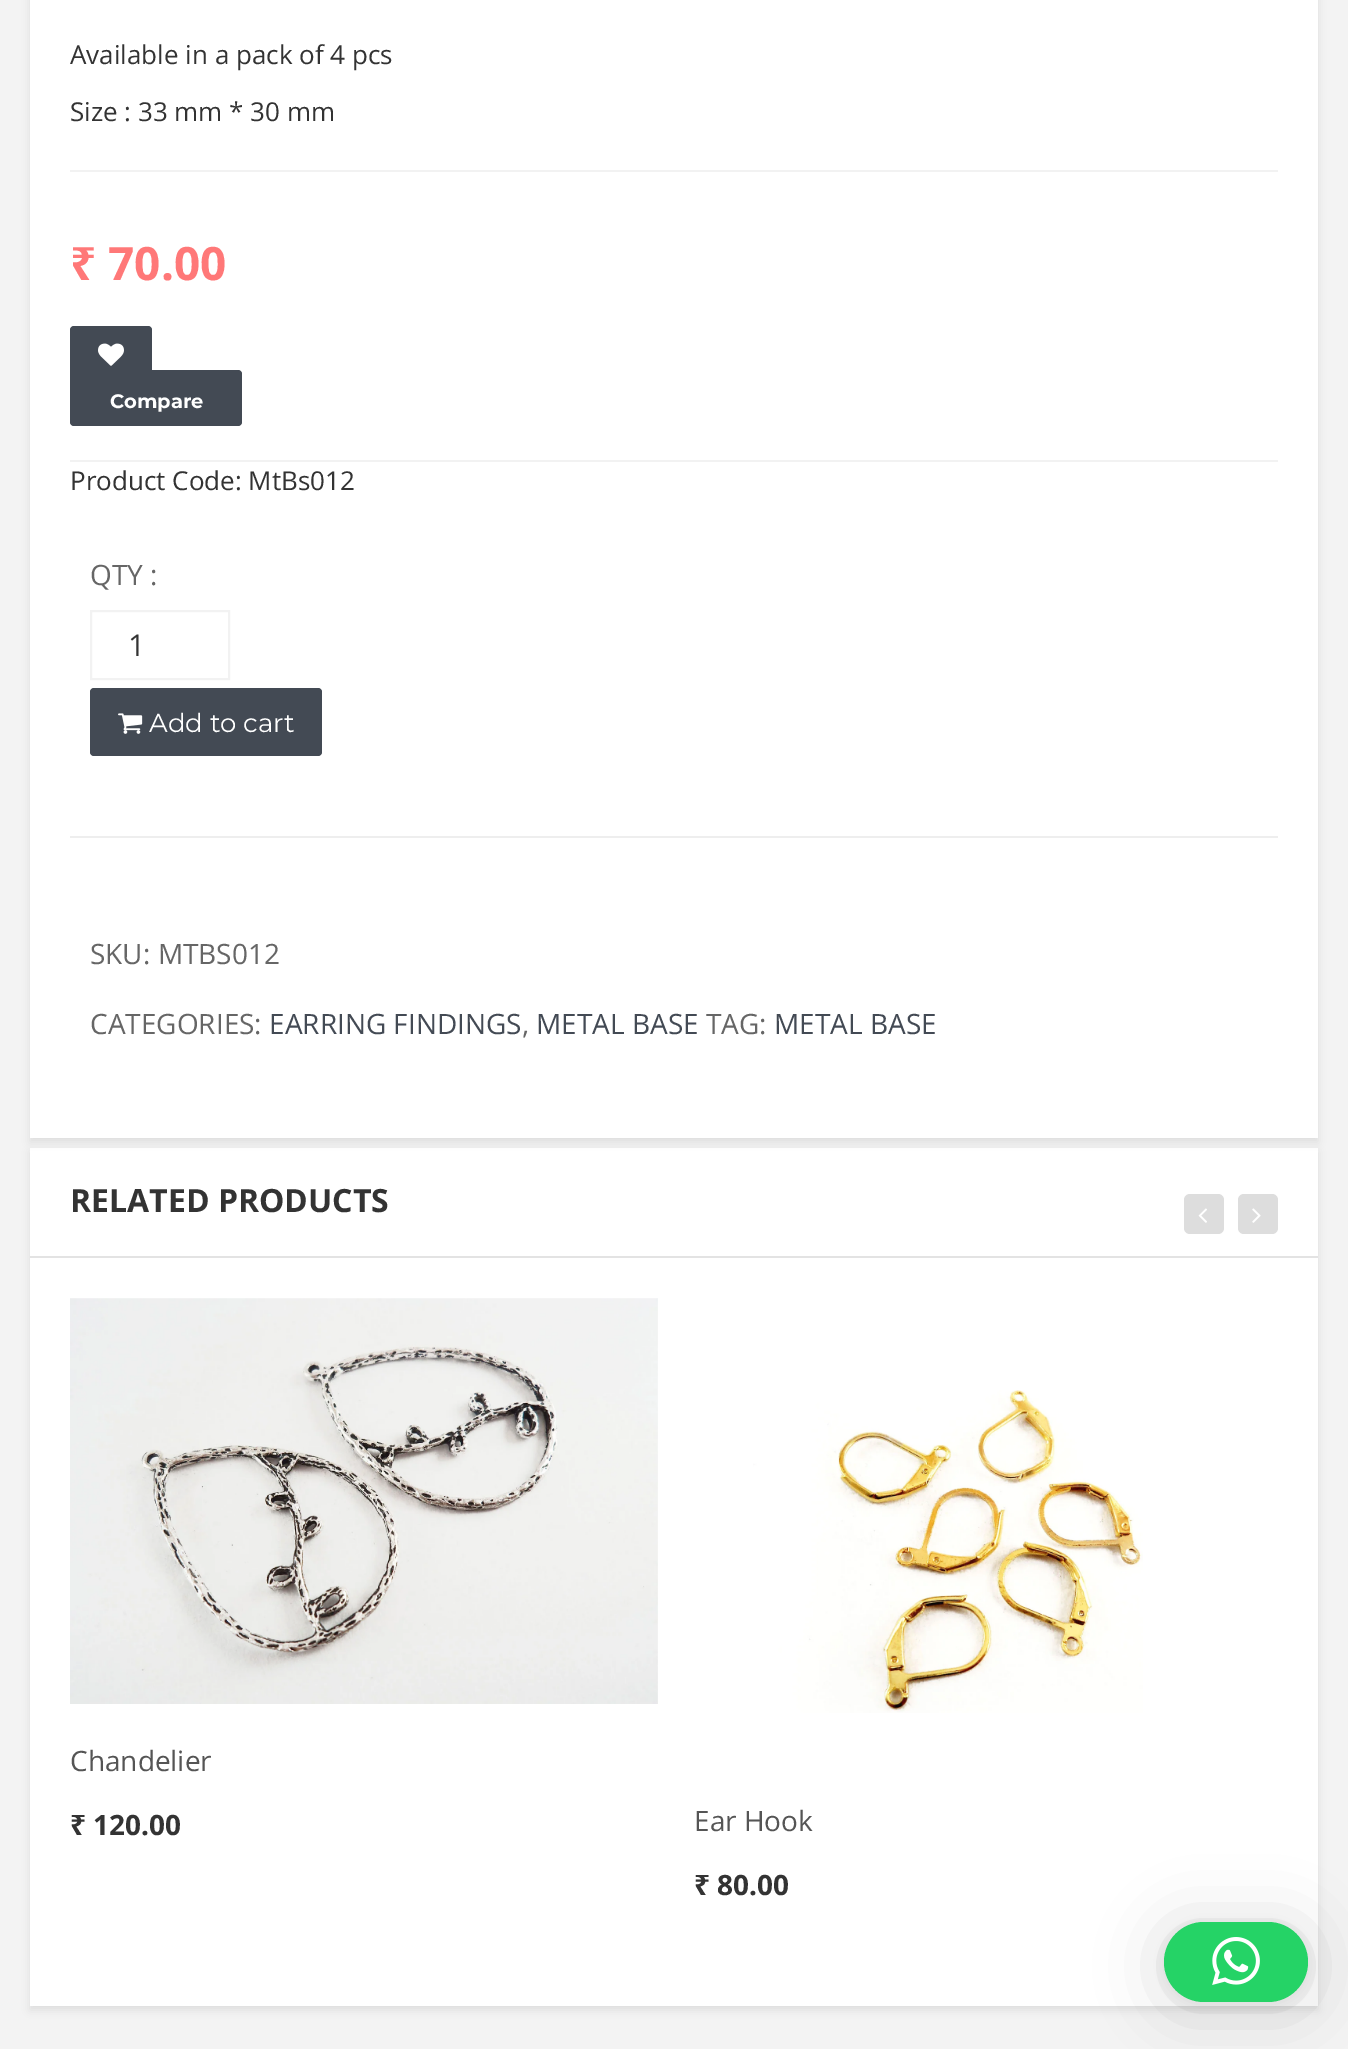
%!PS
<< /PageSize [1348 2049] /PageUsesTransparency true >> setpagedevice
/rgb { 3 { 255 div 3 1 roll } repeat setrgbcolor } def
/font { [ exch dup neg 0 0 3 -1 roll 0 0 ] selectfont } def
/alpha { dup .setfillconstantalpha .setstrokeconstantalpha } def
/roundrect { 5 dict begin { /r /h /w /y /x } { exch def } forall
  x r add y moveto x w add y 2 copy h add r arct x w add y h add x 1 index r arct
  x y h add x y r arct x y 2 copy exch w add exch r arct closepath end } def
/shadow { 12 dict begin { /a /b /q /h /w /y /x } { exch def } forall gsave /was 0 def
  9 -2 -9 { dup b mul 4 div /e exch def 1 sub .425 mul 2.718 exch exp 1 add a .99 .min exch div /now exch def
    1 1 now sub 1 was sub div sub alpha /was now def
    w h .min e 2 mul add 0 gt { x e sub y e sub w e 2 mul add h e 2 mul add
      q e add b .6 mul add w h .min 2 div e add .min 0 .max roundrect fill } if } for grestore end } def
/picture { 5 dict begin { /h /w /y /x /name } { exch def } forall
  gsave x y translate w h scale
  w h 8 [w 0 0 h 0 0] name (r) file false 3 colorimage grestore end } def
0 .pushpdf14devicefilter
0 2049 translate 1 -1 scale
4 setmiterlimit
243 243 243 rgb
0 0 1348 2049 rectfill
0 0 0 rgb
30 1152 1288 858 0 4 0.08 shadow
255 255 255 rgb
30 1148 1288 858 rectfill
0 0 0 rgb
30 -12 1288 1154 0 4 0.08 shadow
[
  [30 0 1288 1138 255 255 255]
  [70 170 1208 2 242 242 242]
  [70 460 1208 2 242 242 242]
] { aload pop rgb rectfill } forall
67 74 84 rgb
70 326 82 56 4 roundrect fill
(img/1.rgb) 98 343 26 23 picture
70 370 172 56 4 roundrect fill
242 242 242 rgb
2 setlinewidth
91 611 138 68 rectstroke
67 74 84 rgb
90 688 232 68 4 roundrect fill
(img/2.rgb) 118 713 25 21 picture
238 238 238 rgb
70 836 1208 2 rectfill
227 227 227 rgb
30 1256 1288 2 rectfill
221 221 221 rgb
1184 1194 40 40 6 roundrect fill
(img/3.rgb) 1198 1208 9 15 picture
1238 1194 40 40 6 roundrect fill
(img/4.rgb) 1252 1208 9 15 picture
(img/5.rgb) 70 1298 588 406 picture
(img/6.rgb) 753 1390 390 323 picture
0 0 0 rgb
1164 1926 144 80 40 32 0.16 shadow
1164 1924 144 80 40 6 0.06 shadow
37 211 102 rgb
1164 1922 144 80 40 roundrect fill
(img/7.rgb) 1212 1937 48 48 picture
/OpenSans-Regular 26 font
51 51 51 rgb
70 64 moveto (Available in a pack of 4 pcs) show
70 121 moveto (Size : 33 mm * 30 mm) show
/NotoSans-Bold 46 font
255 120 120 rgb
70 280 moveto (₹) show
/OpenSans-Bold 46 font
108 280 moveto (70.00) show
/Montserrat-Bold 19.5 font
255 255 255 rgb
110 408 moveto (Compare) show
/OpenSans-Regular 26 font
51 51 51 rgb
70 490 moveto (Product Code: MtBs012) show
/OpenSans-Regular 28 font
102 102 102 rgb
90 585 moveto (QTY :) show
/OpenSans-Regular 30 font
51 51 51 rgb
128 656 moveto (1) show
/Montserrat-Regular 26 font
255 255 255 rgb
149 732 moveto (Add to cart) show
/OpenSans-Regular 28 font
102 102 102 rgb
90 964 moveto (SKU: MTBS012) show
90 1034 moveto (CATEGORIES:) show
67 74 84 rgb
269 1034 moveto (EARRING FINDINGS) show
102 102 102 rgb
522 1034 moveto (,) show
67 74 84 rgb
536 1034 moveto (METAL BASE) show
102 102 102 rgb
706 1034 moveto (TAG:) show
67 74 84 rgb
774 1034 moveto (METAL BASE) show
/OpenSans-Bold 32 font
51 51 51 rgb
70 1212 moveto (RELATED PRODUCTS) show
/OpenSans-Regular 28 font
85 85 85 rgb
70 1771 moveto (Chandelier) show
/NotoSans-Bold 28 font
51 51 51 rgb
70 1835 moveto (₹) show
/OpenSans-Bold 28 font
93 1835 moveto (120.00) show
/OpenSans-Regular 28 font
85 85 85 rgb
694 1831 moveto (Ear Hook) show
/NotoSans-Bold 28 font
51 51 51 rgb
694 1895 moveto (₹) show
/OpenSans-Bold 28 font
717 1895 moveto (80.00) show
.poppdf14devicefilter showpage
